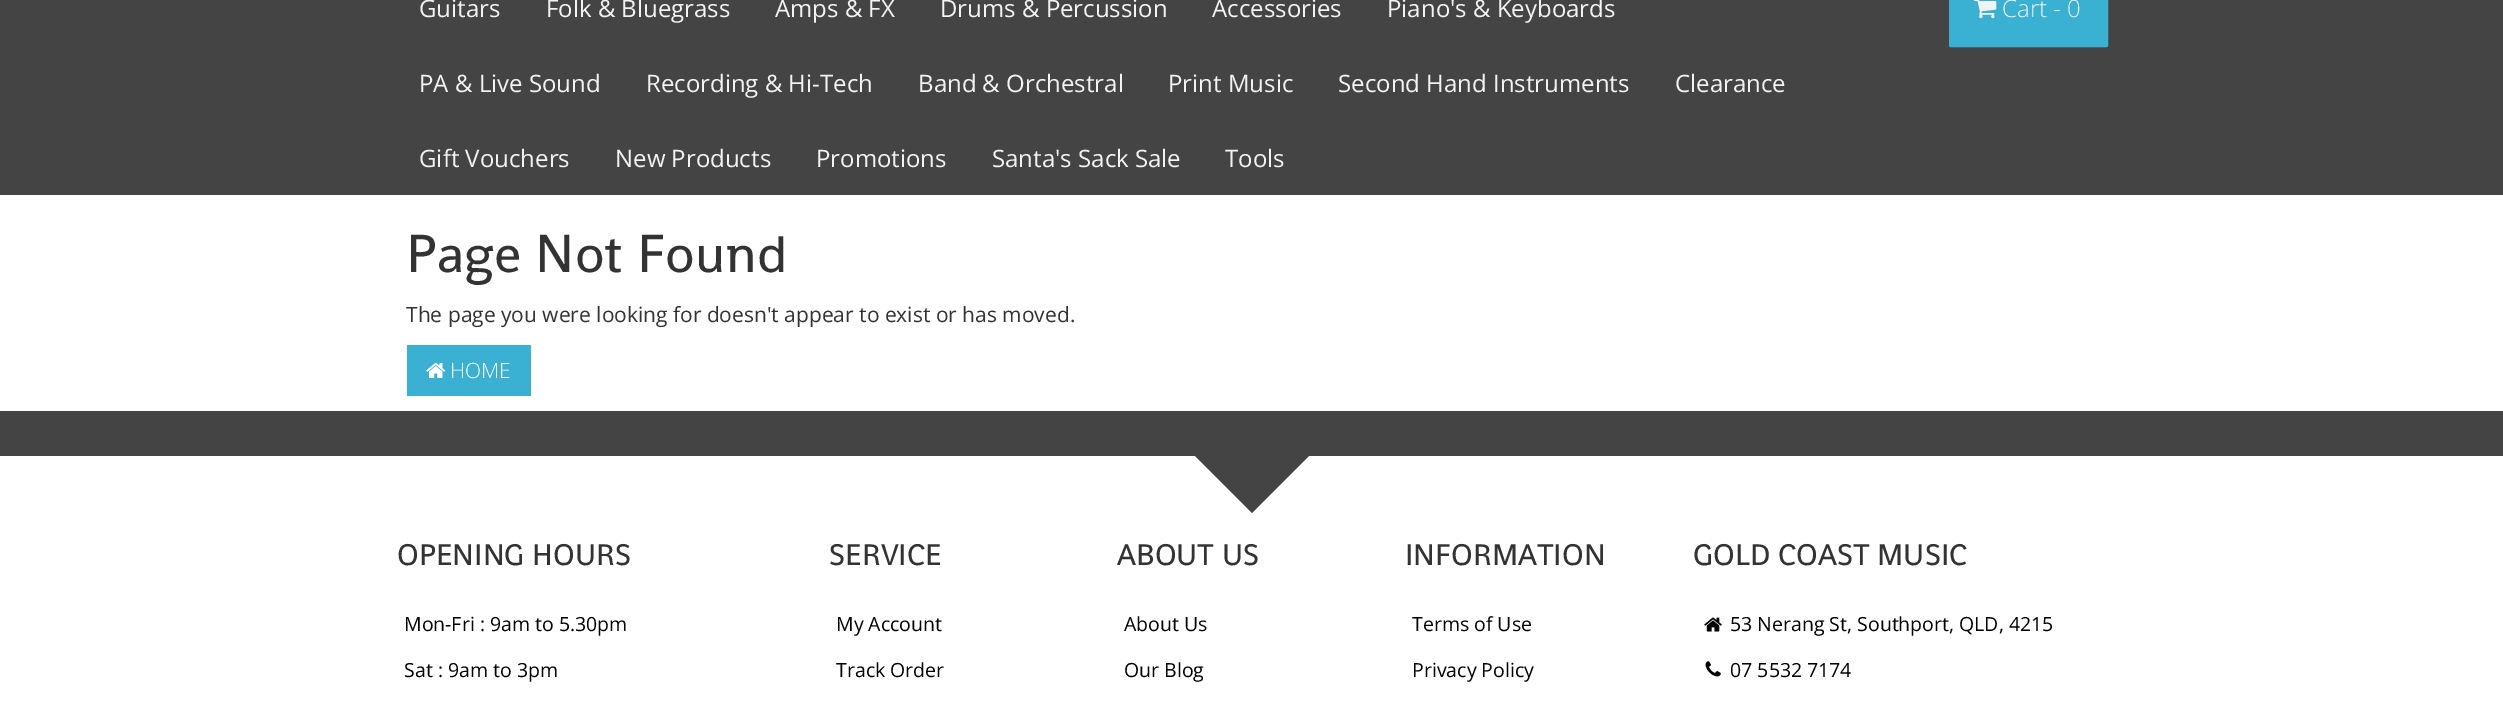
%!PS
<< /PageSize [2503 708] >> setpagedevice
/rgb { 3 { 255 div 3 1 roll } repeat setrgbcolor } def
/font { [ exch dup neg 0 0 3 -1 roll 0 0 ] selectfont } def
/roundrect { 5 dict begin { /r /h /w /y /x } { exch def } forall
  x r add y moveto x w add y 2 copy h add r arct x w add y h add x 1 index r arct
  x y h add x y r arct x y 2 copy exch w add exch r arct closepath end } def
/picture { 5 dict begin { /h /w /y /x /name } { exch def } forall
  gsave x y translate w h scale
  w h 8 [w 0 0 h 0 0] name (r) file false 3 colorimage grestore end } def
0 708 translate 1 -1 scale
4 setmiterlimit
255 255 255 rgb
0 0 2503 708 rectfill
68 68 68 rgb
0 0 2503 195 rectfill
58 176 211 rgb
1950 -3 157 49 0.5 roundrect gsave fill grestore
2 setlinewidth
stroke
(img/1.rgb) 1974 0 23 19 picture
407 345 124 51 rectfill
(img/2.rgb) 426 363 20 15 picture
68 68 68 rgb
0 411 2503 45 rectfill
1192 453 moveto 1312 453 lineto 1252 513 lineto closepath fill
(img/3.rgb) 1704 617 18 15 picture
(img/4.rgb) 1705 661 16 16 picture
/OpenSans-Regular 24 font
243 243 243 rgb
[
  [(Guitars) 419 17]
  [(Folk & Bluegrass) 546 17]
  [(Amps & FX) 775 17]
  [(Drums & Percussion) 940 17]
  [(Accessories) 1212 17]
  [(Piano's & Keyboards) 1387 17]
  [(PA & Live Sound) 419 92]
  [(Recording & Hi-Tech) 646 92]
  [(Band & Orchestral) 918 92]
  [(Print Music) 1168 92]
  [(Second Hand Instruments) 1338 92]
  [(Clearance) 1675 92]
  [(Gift Vouchers) 419 167]
  [(New Products) 615 167]
  [(Promotions) 816 167]
  [(Santa's Sack Sale) 992 167]
  [(Tools) 1225 167]
] { aload pop moveto show } forall
/OpenSans-Light 24 font
2002 17 moveto (Cart - 0) show
/Shanti-Regular 54 font
51 51 51 rgb
406 272 moveto (Page Not Found) show
/OpenSans-Regular 21 font
406 322 moveto (The page you were looking for doesn't appear to exist or has moved.) show
/OpenSans-Light 21 font
255 255 255 rgb
450 378 moveto (HOME) show
/Shanti-Regular 30 font
51 51 51 rgb
397 565 moveto (OPENING HOURS) show
/OpenSans-Regular 19.5 font
0 0 0 rgb
404 631 moveto (Mon-Fri : 9am to 5.30pm) show
404 677 moveto (Sat : 9am to 3pm) show
/Shanti-Regular 30 font
51 51 51 rgb
829 565 moveto (SERVICE) show
/OpenSans-Regular 19.5 font
0 0 0 rgb
836 631 moveto (My Account) show
836 677 moveto (Track Order) show
/Shanti-Regular 30 font
51 51 51 rgb
1117 565 moveto (ABOUT US) show
/OpenSans-Regular 19.5 font
0 0 0 rgb
1124 631 moveto (About Us) show
1124 677 moveto (Our Blog) show
/Shanti-Regular 30 font
51 51 51 rgb
1405 565 moveto (INFORMATION) show
/OpenSans-Regular 19.5 font
0 0 0 rgb
1412 631 moveto (Terms of Use) show
1412 677 moveto (Privacy Policy) show
/Shanti-Regular 30 font
51 51 51 rgb
1693 565 moveto (GOLD COAST MUSIC) show
/OpenSans-Regular 19.5 font
0 0 0 rgb
1730 631 moveto (53 Nerang St, Southport, QLD, 4215) show
1730 677 moveto (07 5532 7174) show
showpage
